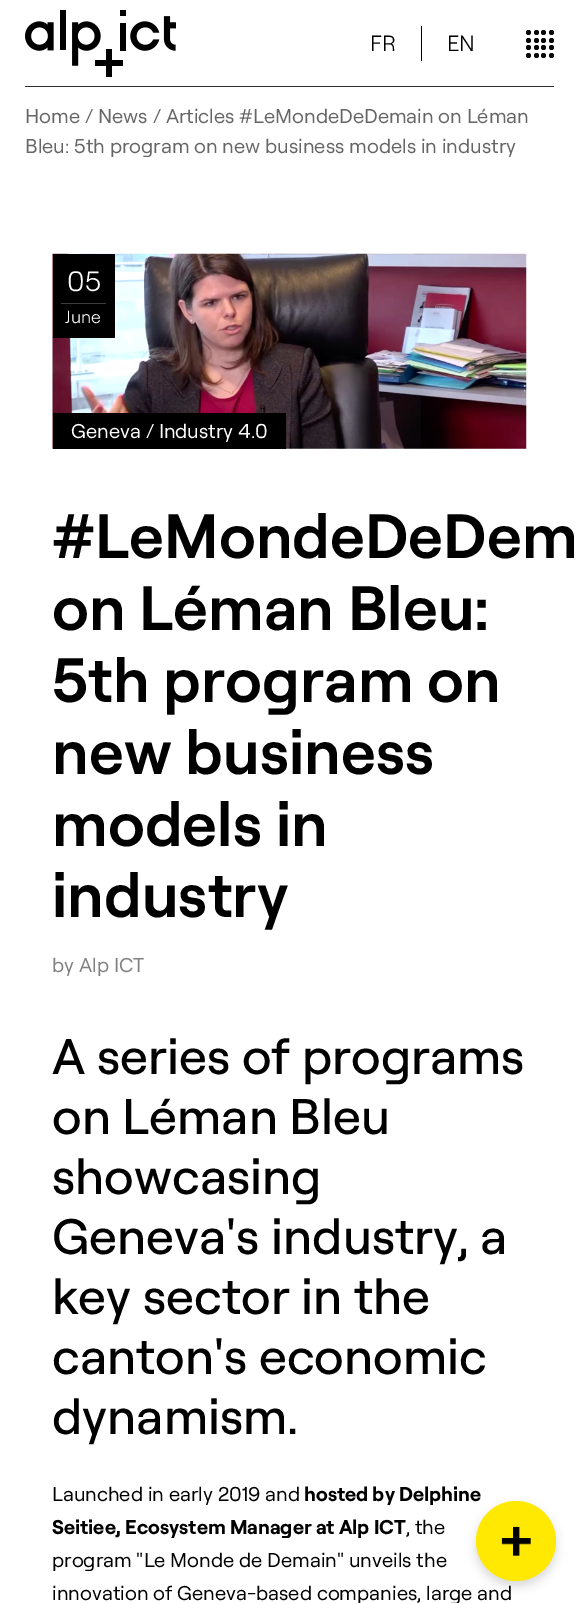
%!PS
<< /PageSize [578 1603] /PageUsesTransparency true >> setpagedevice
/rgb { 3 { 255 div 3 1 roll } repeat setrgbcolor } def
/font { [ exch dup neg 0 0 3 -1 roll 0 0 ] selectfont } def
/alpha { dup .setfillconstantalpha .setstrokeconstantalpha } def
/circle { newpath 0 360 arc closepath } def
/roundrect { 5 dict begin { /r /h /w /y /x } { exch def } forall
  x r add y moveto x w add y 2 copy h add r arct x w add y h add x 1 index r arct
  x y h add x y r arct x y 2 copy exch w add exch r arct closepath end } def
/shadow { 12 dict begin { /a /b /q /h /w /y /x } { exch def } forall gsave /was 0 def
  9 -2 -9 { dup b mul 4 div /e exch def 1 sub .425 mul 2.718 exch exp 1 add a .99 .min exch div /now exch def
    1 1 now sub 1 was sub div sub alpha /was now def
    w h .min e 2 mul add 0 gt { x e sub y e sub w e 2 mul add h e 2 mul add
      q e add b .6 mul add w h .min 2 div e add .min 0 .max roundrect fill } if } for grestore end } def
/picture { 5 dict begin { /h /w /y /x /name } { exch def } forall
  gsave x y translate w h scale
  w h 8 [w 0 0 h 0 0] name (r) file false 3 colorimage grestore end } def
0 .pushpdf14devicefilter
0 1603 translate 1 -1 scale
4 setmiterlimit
255 255 255 rgb
0 0 578 1603 rectfill
(img/1.rgb) 25 10 151 67 picture
0 0 0 rgb
421 26 1 35 rectfill
10 10 10 rgb
528.5 32.5 2.5 circle fill
536.5 32.5 2.5 circle fill
543.5 32.5 2.5 circle fill
551.5 32.5 2.5 circle fill
528.5 40.5 2.5 circle fill
536.5 40.5 2.5 circle fill
543.5 40.5 2.5 circle fill
551.5 40.5 2.5 circle fill
528.5 47.5 2.5 circle fill
536.5 47.5 2.5 circle fill
543.5 47.5 2.5 circle fill
551.5 47.5 2.5 circle fill
528.5 55.5 2.5 circle fill
536.5 55.5 2.5 circle fill
543.5 55.5 2.5 circle fill
551.5 55.5 2.5 circle fill
43 44 46 rgb
25 86 529 1 rectfill
(img/2.rgb) 52 253 475 196 picture
[
  [53 254 62 84 0 0 0]
  [61 303 45 1 61 61 61]
  [53 413 233 36 0 0 0]
] { aload pop rgb rectfill } forall
476 1506 80 80 40 5 0.15 shadow
/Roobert-Light 22 font
370 51 moveto (FR) show
447 51 moveto (EN) show
/Roobert-Regular 20 font
102 102 102 rgb
25 123 moveto (Home / News / Articles #LeMondeDeDemain on Léman) show
25 153 moveto (Bleu: 5th program on new business models in industry) show
/Roobert-Light 28 font
255 255 255 rgb
67 291 moveto (05) show
/Roobert-Light 17.5 font
65 323 moveto (June) show
/Roobert-Regular 20 font
71 438 moveto (Geneva / Industry 4.0) show
/Roobert-SemiBold 62.5 font
0 0 0 rgb
[
  [(#LeMondeDeDem) 52 558]
  [(on Léman Bleu:) 52 630]
  [(5th program on) 52 702]
  [(new business) 52 774]
  [(models in) 52 846]
  [(industry) 52 917]
] { aload pop moveto show } forall
/Roobert-Regular 20 font
129 129 129 rgb
52 972 moveto (by Alp ICT) show
/Roobert-Medium 50 font
0 0 0 rgb
[
  [(A series of programs) 52 1074]
  [(on Léman Bleu) 52 1134]
  [(showcasing) 52 1194]
  [(Geneva's industry, a) 52 1254]
  [(key sector in the) 52 1314]
  [(canton's economic) 52 1374]
  [(dynamism.) 52 1434]
] { aload pop moveto show } forall
/Roobert-Regular 20 font
52 1501 moveto (Launched in early 2019 and) show
/Roobert-Bold 20 font
304 1501 moveto (hosted by Delphine) show
52 1534 moveto (Seitiee, Ecosystem Manager at Alp ICT) show
/Roobert-Regular 20 font
[
  [(, the) 406 1534]
  [(program "Le Monde de Demain" unveils the) 52 1567]
  [(innovation of Geneva-based companies, large and) 52 1600]
] { aload pop moveto show } forall
255 232 1 rgb
516 1541 40 circle fill
(img/3.rgb) 501 1526 30 30 picture
.poppdf14devicefilter showpage
